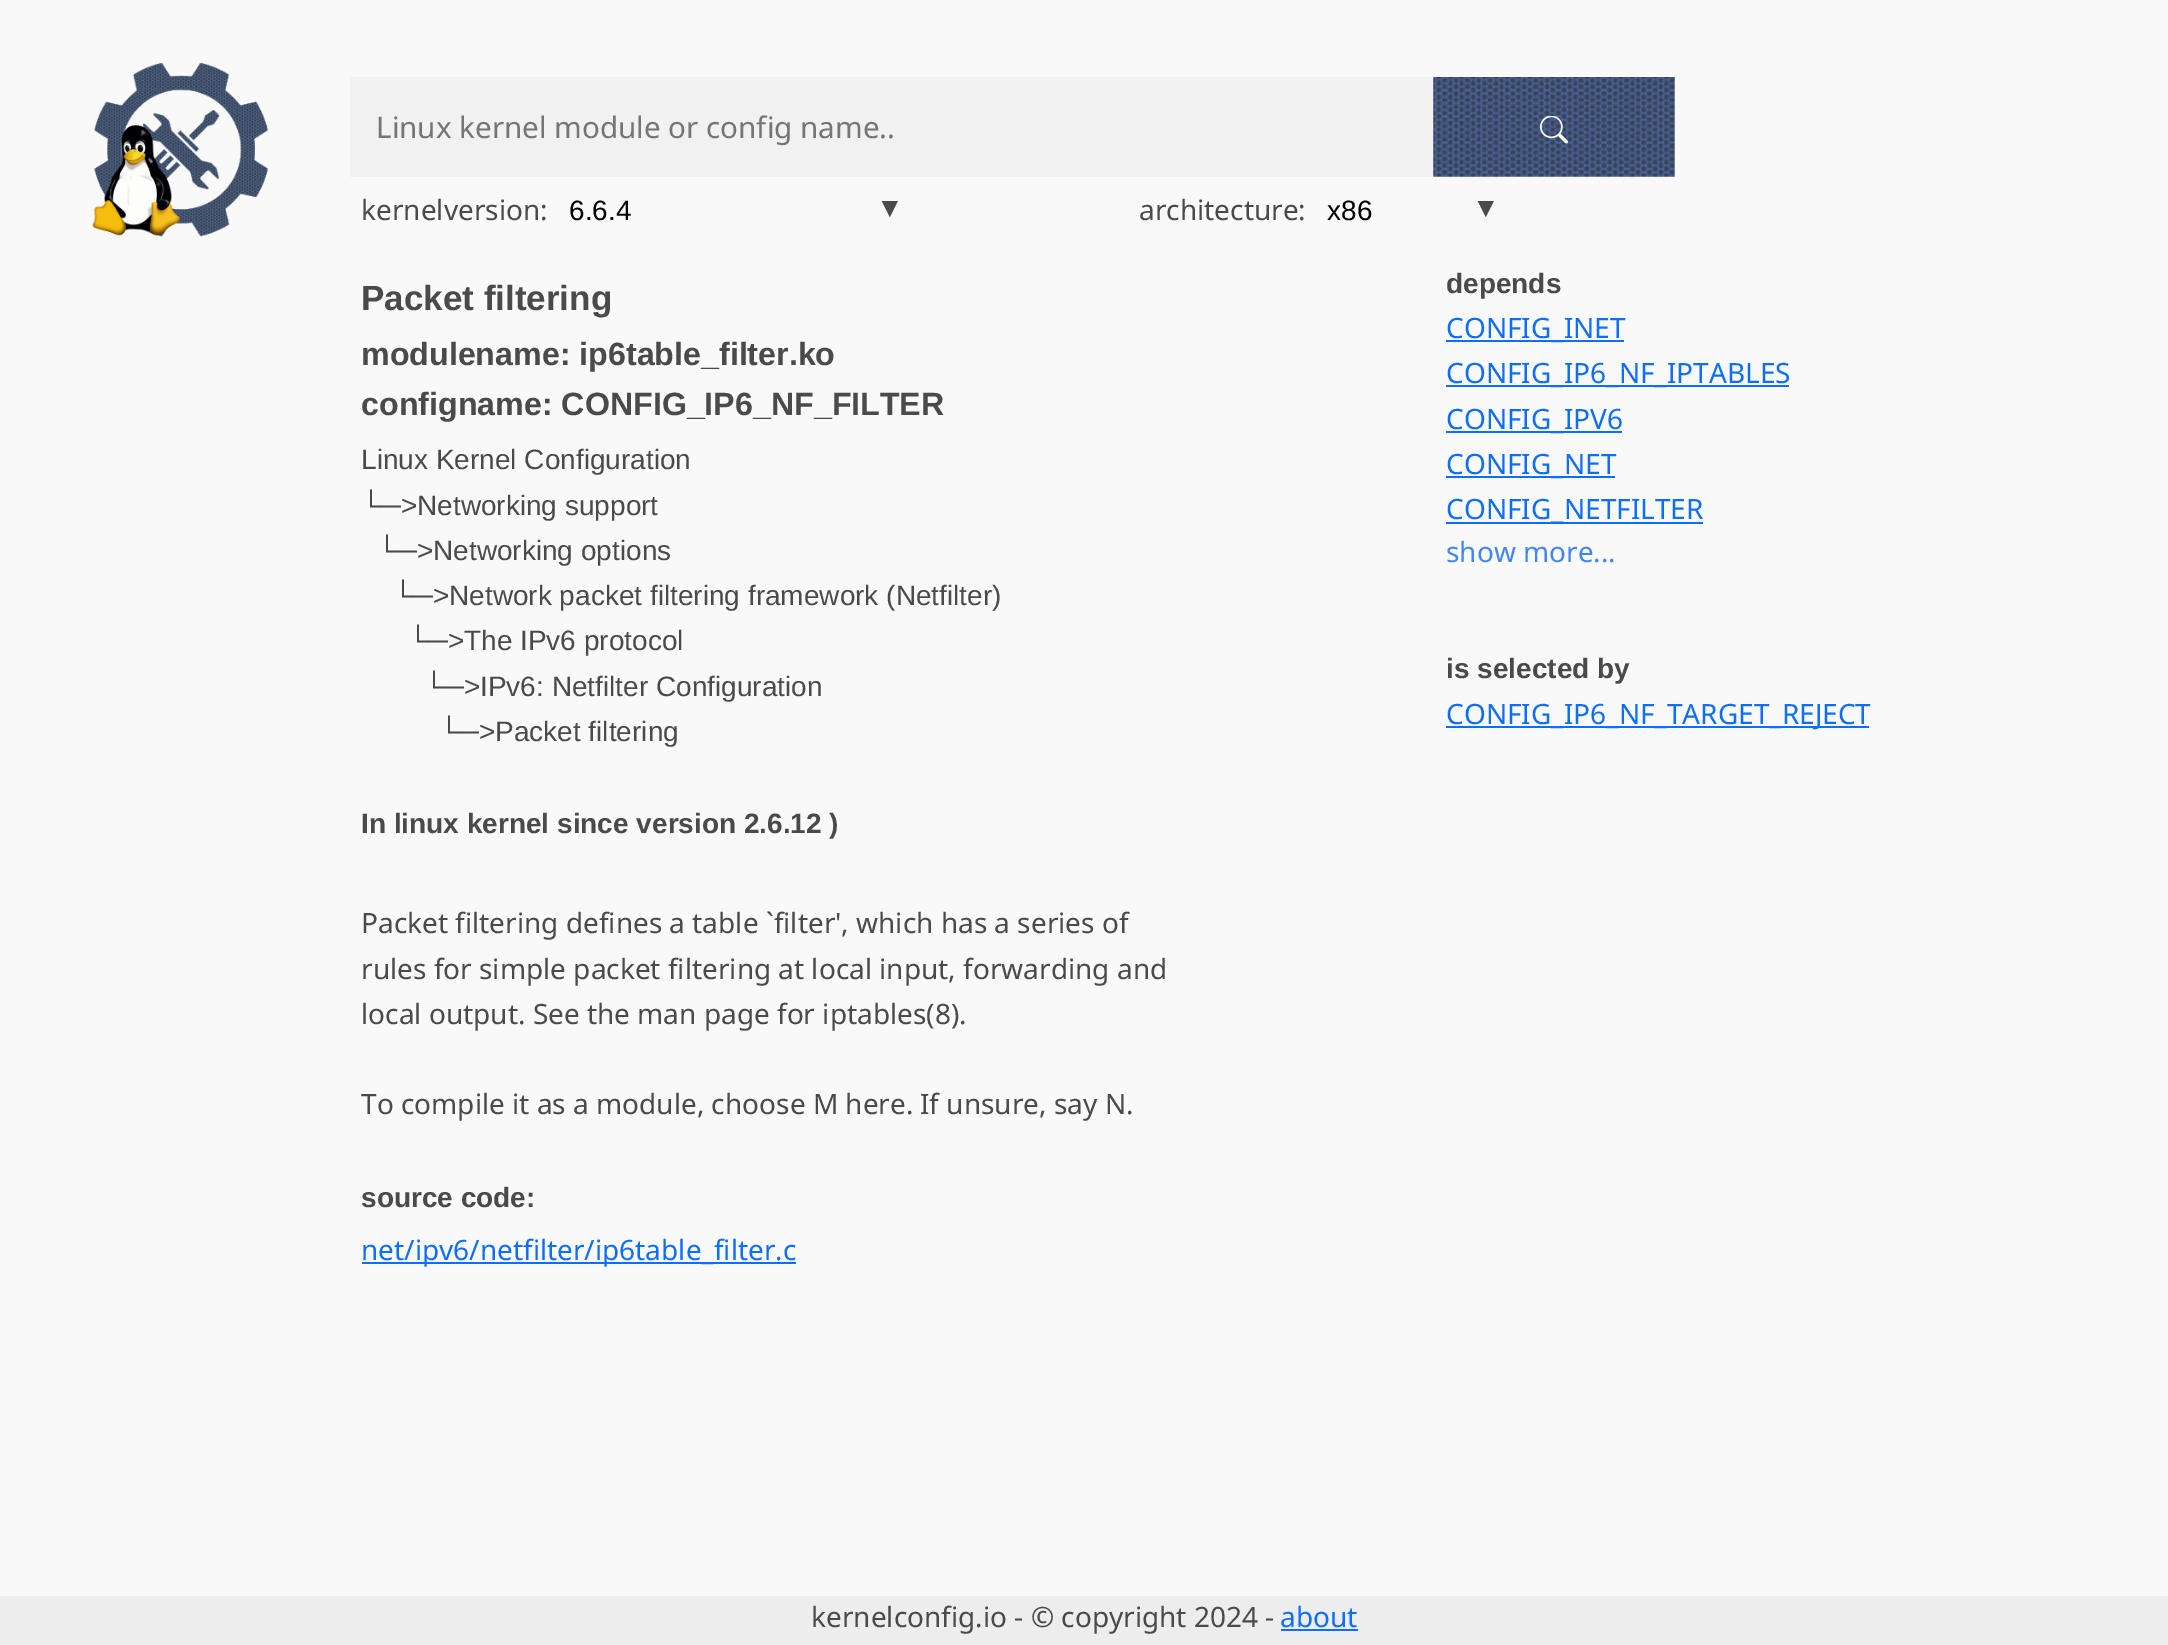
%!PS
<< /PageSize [2168 1645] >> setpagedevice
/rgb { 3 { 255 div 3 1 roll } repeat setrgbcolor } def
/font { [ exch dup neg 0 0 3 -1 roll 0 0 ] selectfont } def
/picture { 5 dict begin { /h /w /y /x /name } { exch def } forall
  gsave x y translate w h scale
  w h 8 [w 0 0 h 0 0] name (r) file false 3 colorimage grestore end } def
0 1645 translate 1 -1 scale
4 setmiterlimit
249 249 249 rgb
0 0 2168 1645 rectfill
(img/1.rgb) 92 63 176 174 picture
241 241 241 rgb
350 77 1083 100 rectfill
(img/2.rgb) 1433 77 242 100 picture
(img/3.rgb) 1540 116 28 28 picture
[
  [362 1262 434 2 13 110 253]
  [1446 340 178 2 13 110 253]
  [1446 385 343 2 13 110 253]
  [1446 431 176 2 13 110 253]
  [1446 476 169 2 13 110 253]
  [1446 522 257 2 13 110 253]
  [1446 726 423 2 13 110 253]
  [0 1596 2168 49 237 237 237]
  [1281 1629 77 2 13 110 253]
] { aload pop rgb rectfill } forall
/NotoSans-Regular 29.6 font
117 117 117 rgb
376 138 moveto (Linux kernel module or config name..) show
/NotoSans-Regular 28 font
74 74 74 rgb
361 220 moveto (kernelversion:) show
/LiberationSans-Regular 28 font
0 0 0 rgb
569 220 moveto (6.6.4) show
/LiberationSans-Italic 28 font
74 74 74 rgb
876 217 moveto (▼) show
/NotoSans-Regular 28 font
1139 220 moveto (architecture:) show
/LiberationSans-Regular 28 font
0 0 0 rgb
1327 220 moveto (x86) show
/LiberationSans-Italic 28 font
74 74 74 rgb
1472 217 moveto (▼) show
/LiberationSans-Bold 35 font
361 310 moveto (Packet filtering) show
/LiberationSans-Bold 32.2 font
361 365 moveto (modulename: ip6table_filter.ko) show
361 415 moveto (configname: CONFIG_IP6_NF_FILTER) show
/LiberationSans-Regular 28 font
[
  [(Linux Kernel Configuration) 361 469]
  [(└─>Networking support) 361 515]
  [(└─>Networking options) 377 560]
  [(└─>Network packet filtering framework \(Netfilter\)) 393 605]
  [(└─>The IPv6 protocol) 408 650]
  [(└─>IPv6: Netfilter Configuration) 424 696]
  [(└─>Packet filtering) 439 741]
] { aload pop moveto show } forall
/LiberationSans-Bold 28 font
361 833 moveto (In linux kernel since version 2.6.12) show
829 833 moveto (\)) show
/NotoSans-Regular 28 font
[
  [(Packet filtering defines a table `filter', which has a series of) 361 933]
  [(rules for simple packet filtering at local input, forwarding and) 361 979]
  [(local output. See the man page for iptables\(8\).) 361 1024]
  [(To compile it as a module, choose M here.) 361 1114]
  [(If unsure, say N.) 920 1114]
] { aload pop moveto show } forall
/LiberationSans-Bold 28 font
361 1207 moveto (source code:) show
/NotoSans-Regular 28 font
13 110 253 rgb
361 1260 moveto (net/ipv6/netfilter/ip6table_filter.c) show
/LiberationSans-Bold 28 font
74 74 74 rgb
1446 293 moveto (depends) show
/NotoSans-Regular 28 font
13 110 253 rgb
[
  [(CONFIG_INET) 1446 338]
  [(CONFIG_IP6_NF_IPTABLES) 1446 383]
  [(CONFIG_IPV6) 1446 429]
  [(CONFIG_NET) 1446 474]
  [(CONFIG_NETFILTER) 1446 519]
] { aload pop moveto show } forall
66 134 244 rgb
1446 562 moveto (show more...) show
/LiberationSans-Bold 28 font
74 74 74 rgb
1446 678 moveto (is selected by) show
/NotoSans-Regular 28 font
13 110 253 rgb
1446 724 moveto (CONFIG_IP6_NF_TARGET_REJECT) show
74 74 74 rgb
811 1627 moveto (kernelconfig.io - © copyright 2024 -) show
13 110 253 rgb
1280 1627 moveto (about) show
showpage
